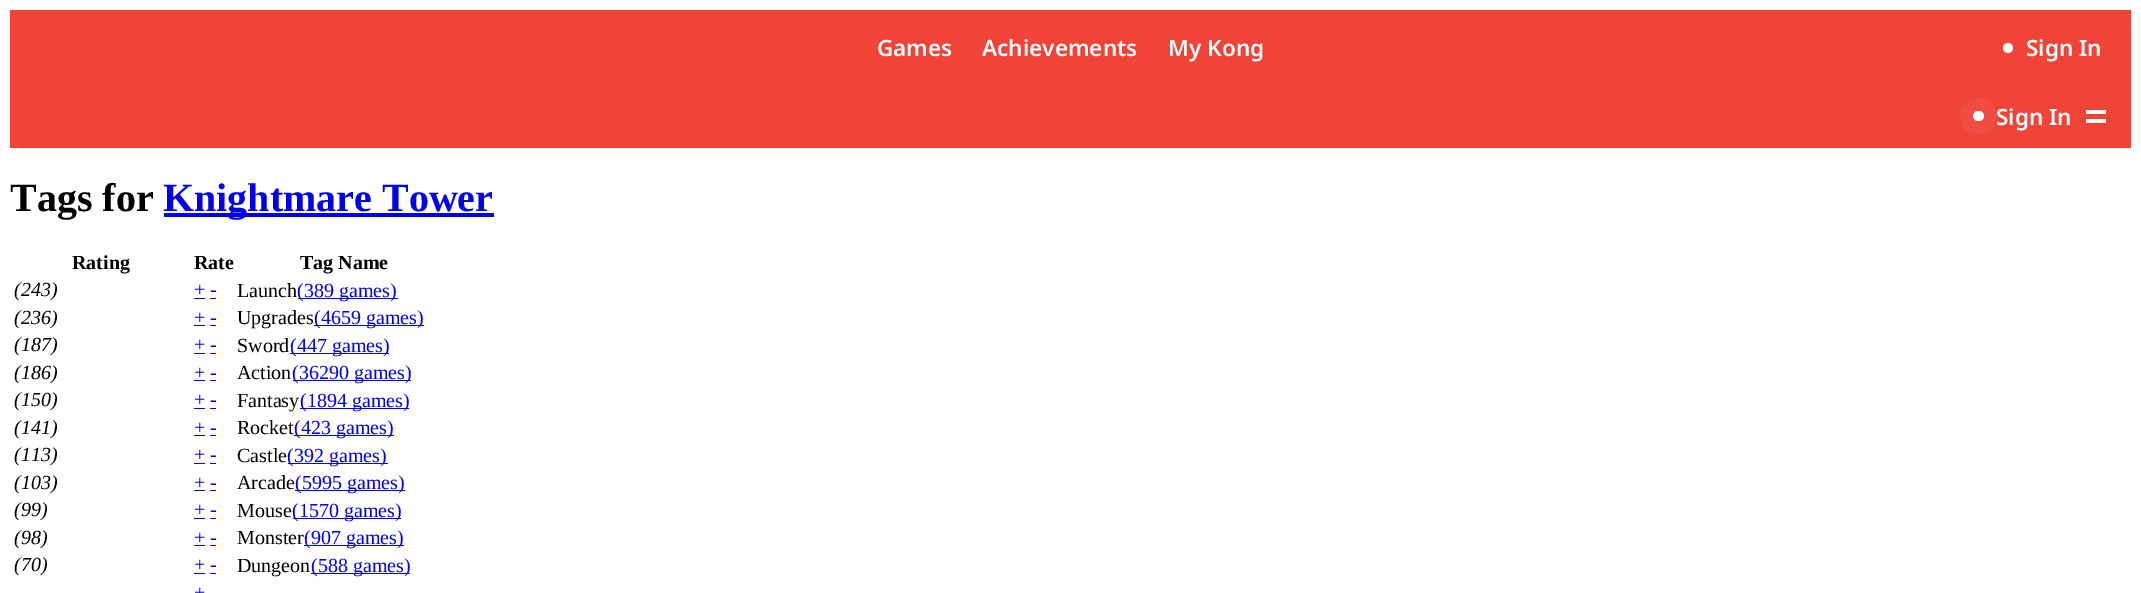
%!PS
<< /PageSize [2141 593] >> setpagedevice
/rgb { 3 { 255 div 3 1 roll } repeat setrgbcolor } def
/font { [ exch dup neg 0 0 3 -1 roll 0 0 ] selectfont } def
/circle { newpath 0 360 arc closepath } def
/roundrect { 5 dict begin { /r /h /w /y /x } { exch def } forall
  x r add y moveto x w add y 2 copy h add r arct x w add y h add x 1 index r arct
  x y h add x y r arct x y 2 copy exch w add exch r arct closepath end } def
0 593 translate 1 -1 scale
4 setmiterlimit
255 255 255 rgb
0 0 2141 593 rectfill
240 68 56 rgb
10 10 2121 138 rectfill
255 255 255 rgb
2008 48 5 circle fill
241 76 65 rgb
1960 98 36 37 18 roundrect fill
255 255 255 rgb
1973 111 11 10 5 roundrect fill
[
  [2086 110 20 4 255 255 255]
  [2086 119 20 4 255 255 255]
  [164 213 330 4 0 0 238]
  [194 298 11 1 0 0 238]
  [210 298 6 1 0 0 238]
  [298 298 100 1 0 0 238]
  [194 325 11 1 0 0 238]
  [210 325 6 1 0 0 238]
  [314 325 110 1 0 0 238]
  [194 353 11 1 0 0 238]
  [210 353 6 1 0 0 238]
  [290 353 99 1 0 0 238]
  [194 380 11 1 0 0 238]
  [210 380 6 1 0 0 238]
  [293 380 118 1 0 0 238]
  [194 408 11 1 0 0 238]
  [210 408 6 1 0 0 238]
  [300 408 109 1 0 0 238]
  [194 435 11 1 0 0 238]
  [210 435 6 1 0 0 238]
  [294 435 100 1 0 0 238]
  [194 463 11 1 0 0 238]
  [210 463 6 1 0 0 238]
  [288 463 100 1 0 0 238]
  [194 490 11 1 0 0 238]
  [210 490 6 1 0 0 238]
  [295 490 110 1 0 0 238]
  [194 518 11 1 0 0 238]
  [210 518 6 1 0 0 238]
  [293 518 108 1 0 0 238]
  [194 545 11 1 0 0 238]
  [210 545 6 1 0 0 238]
  [304 545 100 1 0 0 238]
  [194 573 11 1 0 0 238]
  [210 573 6 1 0 0 238]
  [311 573 99 1 0 0 238]
] { aload pop rgb rectfill } forall
/NotoSans-SemiBold 22.5 font
255 255 255 rgb
[
  [(Games) 877 56]
  [(Achievements) 982 56]
  [(My Kong) 1168 56]
  [(Sign In) 2026 56]
  [(Sign In) 1996 125]
] { aload pop moveto show } forall
/LiberationSerif-Bold 40 font
0 0 0 rgb
10 211 moveto (Tags for) show
0 0 238 rgb
163 211 moveto (Knightmare Tower) show
/LiberationSerif-Bold 20 font
0 0 0 rgb
[
  [(Rating) 72 269]
  [(Rate) 194 269]
  [(Tag Name) 300 269]
] { aload pop moveto show } forall
/LiberationSerif-Italic 20 font
14 296 moveto (\(243\)) show
/LiberationSerif-Regular 20 font
0 0 238 rgb
194 296 moveto (+ -) show
0 0 0 rgb
237 297 moveto (Launch) show
0 0 238 rgb
297 297 moveto (\(389 games\)) show
/LiberationSerif-Italic 20 font
0 0 0 rgb
14 324 moveto (\(236\)) show
/LiberationSerif-Regular 20 font
0 0 238 rgb
194 324 moveto (+ -) show
0 0 0 rgb
237 324 moveto (Upgrades) show
0 0 238 rgb
314 324 moveto (\(4659 games\)) show
/LiberationSerif-Italic 20 font
0 0 0 rgb
14 351 moveto (\(187\)) show
/LiberationSerif-Regular 20 font
0 0 238 rgb
194 351 moveto (+ -) show
0 0 0 rgb
237 352 moveto (Sword) show
0 0 238 rgb
290 352 moveto (\(447 games\)) show
/LiberationSerif-Italic 20 font
0 0 0 rgb
14 379 moveto (\(186\)) show
/LiberationSerif-Regular 20 font
0 0 238 rgb
194 379 moveto (+ -) show
0 0 0 rgb
237 379 moveto (Action) show
0 0 238 rgb
292 379 moveto (\(36290 games\)) show
/LiberationSerif-Italic 20 font
0 0 0 rgb
14 406 moveto (\(150\)) show
/LiberationSerif-Regular 20 font
0 0 238 rgb
194 406 moveto (+ -) show
0 0 0 rgb
237 407 moveto (Fantasy) show
0 0 238 rgb
300 407 moveto (\(1894 games\)) show
/LiberationSerif-Italic 20 font
0 0 0 rgb
14 434 moveto (\(141\)) show
/LiberationSerif-Regular 20 font
0 0 238 rgb
194 434 moveto (+ -) show
0 0 0 rgb
237 434 moveto (Rocket) show
0 0 238 rgb
294 434 moveto (\(423 games\)) show
/LiberationSerif-Italic 20 font
0 0 0 rgb
14 461 moveto (\(113\)) show
/LiberationSerif-Regular 20 font
0 0 238 rgb
194 461 moveto (+ -) show
0 0 0 rgb
237 462 moveto (Castle) show
0 0 238 rgb
287 462 moveto (\(392 games\)) show
/LiberationSerif-Italic 20 font
0 0 0 rgb
14 489 moveto (\(103\)) show
/LiberationSerif-Regular 20 font
0 0 238 rgb
194 489 moveto (+ -) show
0 0 0 rgb
237 489 moveto (Arcade) show
0 0 238 rgb
295 489 moveto (\(5995 games\)) show
/LiberationSerif-Italic 20 font
0 0 0 rgb
14 516 moveto (\(99\)) show
/LiberationSerif-Regular 20 font
0 0 238 rgb
194 516 moveto (+ -) show
0 0 0 rgb
237 517 moveto (Mouse) show
0 0 238 rgb
292 517 moveto (\(1570 games\)) show
/LiberationSerif-Italic 20 font
0 0 0 rgb
14 544 moveto (\(98\)) show
/LiberationSerif-Regular 20 font
0 0 238 rgb
194 544 moveto (+ -) show
0 0 0 rgb
237 544 moveto (Monster) show
0 0 238 rgb
304 544 moveto (\(907 games\)) show
/LiberationSerif-Italic 20 font
0 0 0 rgb
14 571 moveto (\(70\)) show
/LiberationSerif-Regular 20 font
0 0 238 rgb
194 571 moveto (+ -) show
0 0 0 rgb
237 572 moveto (Dungeon) show
0 0 238 rgb
311 572 moveto (\(588 games\)) show
194 599 moveto (+) show
showpage
